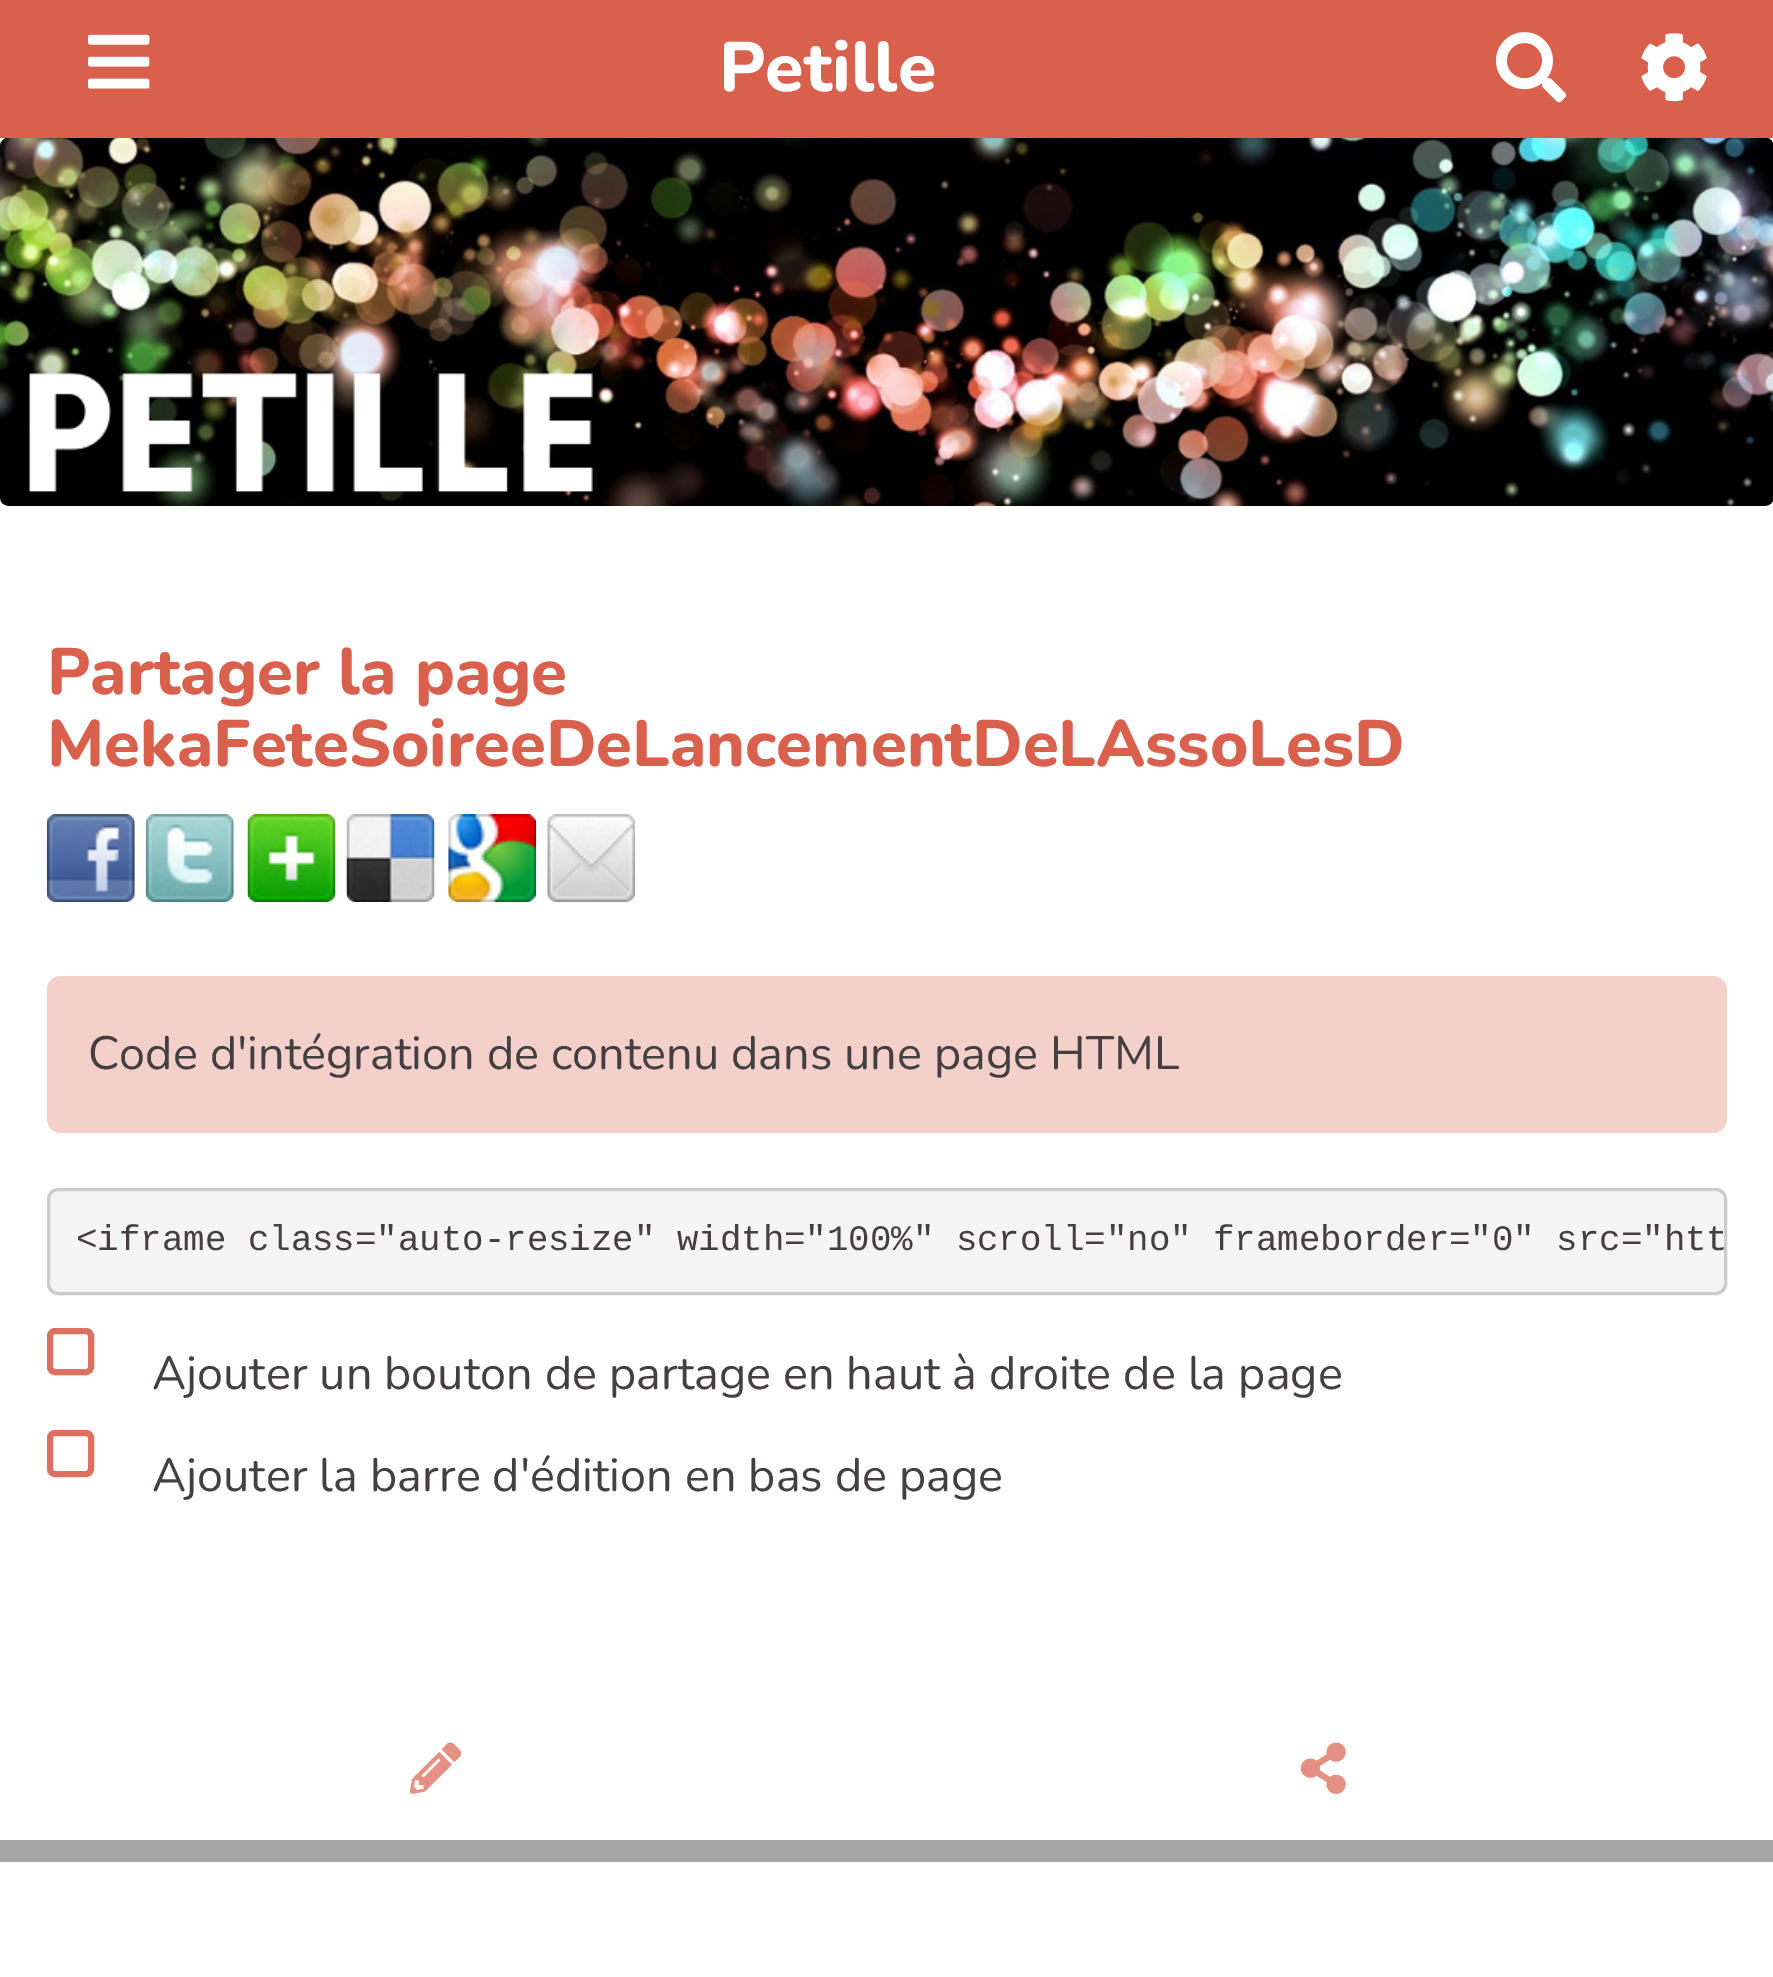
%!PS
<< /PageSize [1773 1977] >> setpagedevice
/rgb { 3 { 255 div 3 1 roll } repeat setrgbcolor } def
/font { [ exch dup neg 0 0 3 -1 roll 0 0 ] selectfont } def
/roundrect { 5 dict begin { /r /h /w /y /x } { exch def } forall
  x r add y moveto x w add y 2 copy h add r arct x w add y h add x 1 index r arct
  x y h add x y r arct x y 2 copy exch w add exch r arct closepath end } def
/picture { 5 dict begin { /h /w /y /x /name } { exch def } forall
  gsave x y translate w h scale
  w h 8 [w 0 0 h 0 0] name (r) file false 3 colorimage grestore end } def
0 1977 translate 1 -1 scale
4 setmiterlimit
255 255 255 rgb
0 0 1773 1977 rectfill
216 96 76 rgb
0 0 1773 138 rectfill
(img/1.rgb) 88 34 62 55 picture
(img/2.rgb) 1496 32 71 71 picture
(img/3.rgb) 1641 33 66 69 picture
(img/4.rgb) 0 138 1773 368 picture
(img/5.rgb) 46 814 89 88 picture
(img/6.rgb) 145 814 89 88 picture
(img/7.rgb) 247 814 89 88 picture
(img/8.rgb) 346 814 89 88 picture
(img/9.rgb) 448 814 89 88 picture
(img/10.rgb) 547 814 89 88 picture
244 208 202 rgb
47 976 1680 157 14 roundrect fill
245 245 245 rgb
48.5 1189.5 1677 104 9.5 roundrect gsave fill grestore
204 204 204 rgb
3 setlinewidth
stroke
220 112 94 rgb
6 setlinewidth
50 1331 41 41 5 roundrect stroke
50 1433 41 41 5 roundrect stroke
(img/11.rgb) 409 1742 53 52 picture
(img/12.rgb) 1300 1742 46 52 picture
167 166 166 rgb
0 1840 1773 22 rectfill
/Nunito-ExtraBold 70 font
255 255 255 rgb
719 91 moveto (Petille) show
/Nunito-ExtraBold 65.45 font
216 96 76 rgb
47 694 moveto (Partager la page) show
47 766 moveto (MekaFeteSoireeDeLancementDeLAssoLesD) show
/Nunito-Regular 46.75 font
68 64 65 rgb
88 1069 moveto (Code d'intégration de contenu dans une page HTML) show
/LiberationMono-Regular 35.75 font
76 1250 moveto (<iframe class="auto-resize" width="100%" scroll="no" frameborder="0" src="htt) show
/Nunito-Regular 46.75 font
152 1389 moveto (Ajouter un bouton de partage en haut à droite de la page) show
152 1491 moveto (Ajouter la barre d'édition en bas de page) show
showpage
